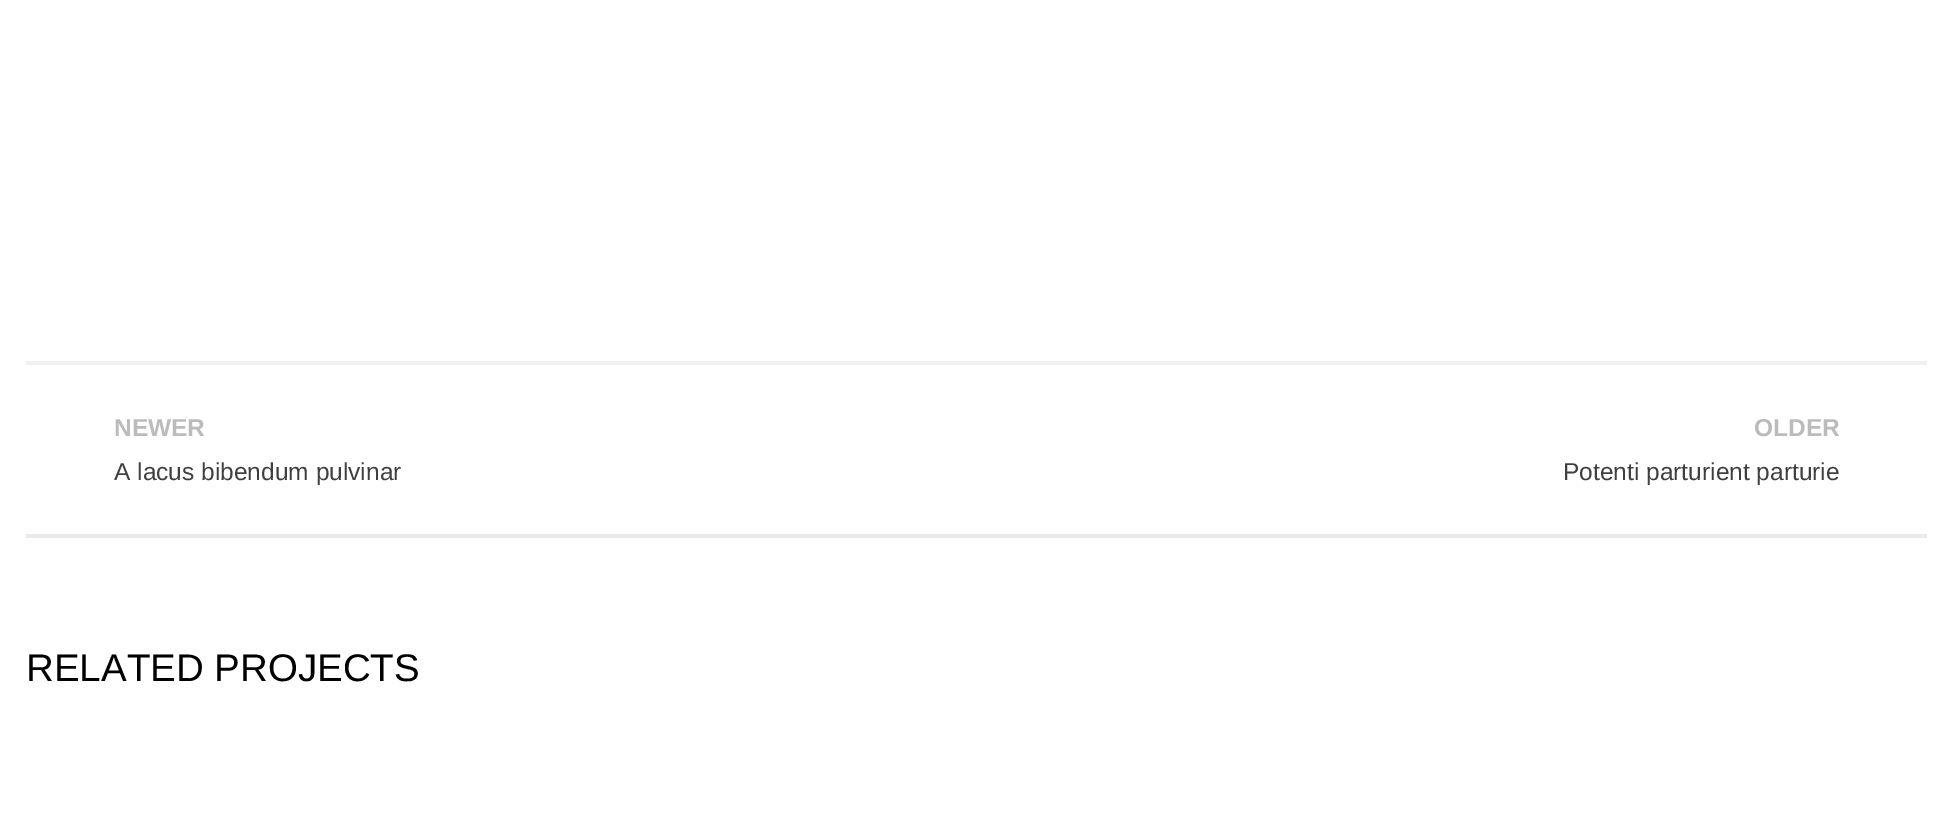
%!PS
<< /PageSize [1952 825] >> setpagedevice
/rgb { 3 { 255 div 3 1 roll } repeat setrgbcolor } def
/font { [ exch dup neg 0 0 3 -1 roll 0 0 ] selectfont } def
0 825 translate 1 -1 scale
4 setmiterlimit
255 255 255 rgb
0 0 1952 825 rectfill
241 241 241 rgb
26 361 1901 4 rectfill
234 234 234 rgb
26 534 1901 4 rectfill
/LiberationSans-Bold 24.5 font
187 187 187 rgb
114 436 moveto (NEWER) show
/LiberationSans-Regular 24.5 font
63 63 63 rgb
114 480 moveto (A lacus bibendum pulvinar) show
/LiberationSans-Bold 24.5 font
187 187 187 rgb
1754 436 moveto (OLDER) show
/LiberationSans-Regular 24.5 font
63 63 63 rgb
1563 480 moveto (Potenti parturient parturie) show
/LiberationSans-Regular 38.5 font
0 0 0 rgb
26 681 moveto (RELATED PROJECTS) show
showpage
